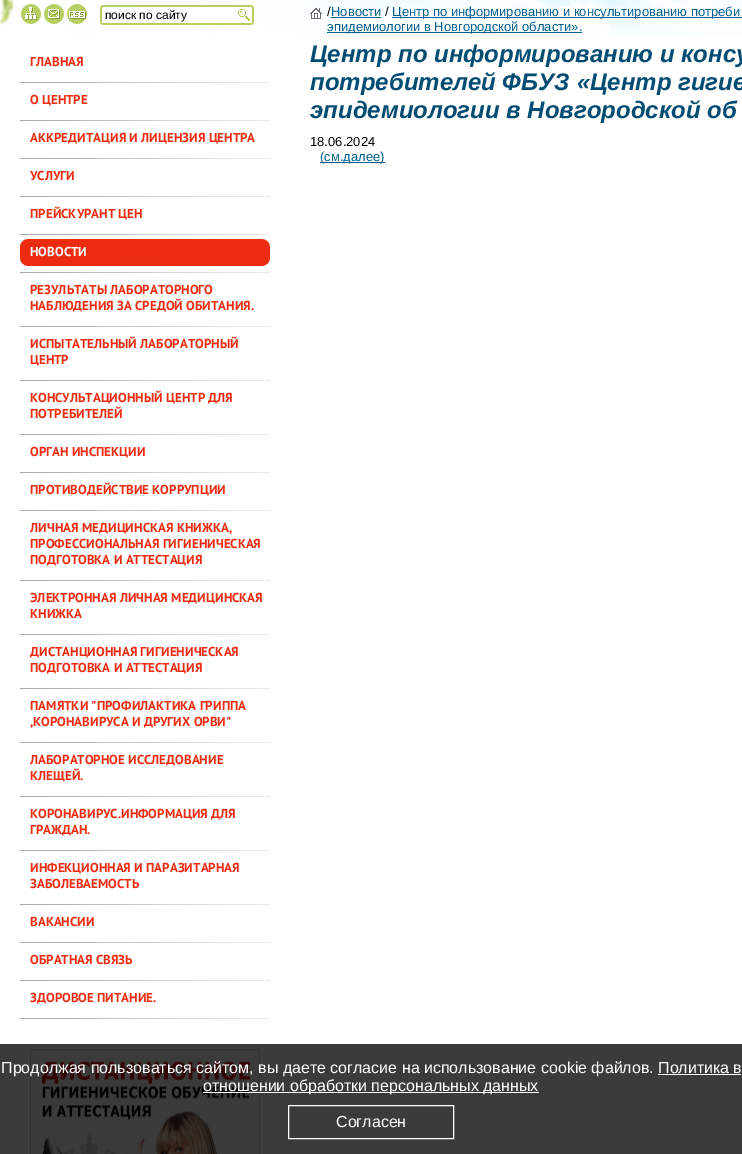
%!PS
<< /PageSize [742 1154] >> setpagedevice
/rgb { 3 { 255 div 3 1 roll } repeat setrgbcolor } def
/font { [ exch dup neg 0 0 3 -1 roll 0 0 ] selectfont } def
/picture { 5 dict begin { /h /w /y /x /name } { exch def } forall
  gsave x y translate w h scale
  w h 8 [w 0 0 h 0 0] name (r) file false 3 colorimage grestore end } def
0 1154 translate 1 -1 scale
4 setmiterlimit
255 255 255 rgb
0 0 742 1154 rectfill
59 59 59 rgb
0 1044 742 110 rectfill
(img/1.rgb) 0 0 742 35 picture
(img/2.rgb) 21 4 20 20 picture
(img/3.rgb) 44 4 20 20 picture
(img/4.rgb) 67 4 20 20 picture
(img/5.rgb) 100 5 138 20 picture
(img/6.rgb) 238 5 16 20 picture
(img/7.rgb) 310 8 12 11 picture
[
  [331 17 50 1 0 95 143]
  [392 17 350 1 0 95 143]
  [327 32 255 1 0 95 143]
] { aload pop rgb rectfill } forall
(img/8.rgb) 20 82 250 1 picture
(img/8.rgb) 20 120 250 1 picture
(img/8.rgb) 20 158 250 1 picture
(img/8.rgb) 20 196 250 1 picture
(img/8.rgb) 20 234 250 1 picture
(img/8.rgb) 20 272 250 1 picture
237 43 17 rgb
20 247 250 11 rectfill
(img/9.rgb) 20 239 250 8 picture
(img/10.rgb) 20 258 250 9 picture
(img/8.rgb) 20 326 250 1 picture
(img/8.rgb) 20 380 250 1 picture
(img/8.rgb) 20 434 250 1 picture
(img/8.rgb) 20 472 250 1 picture
(img/8.rgb) 20 510 250 1 picture
(img/8.rgb) 20 580 250 1 picture
(img/8.rgb) 20 634 250 1 picture
(img/8.rgb) 20 688 250 1 picture
(img/8.rgb) 20 742 250 1 picture
(img/8.rgb) 20 796 250 1 picture
(img/8.rgb) 20 850 250 1 picture
(img/8.rgb) 20 904 250 1 picture
(img/8.rgb) 20 942 250 1 picture
(img/8.rgb) 20 980 250 1 picture
(img/8.rgb) 20 1018 250 1 picture
(img/11.rgb) 30 1049 230 105 picture
[
  [320 162 65 1 0 95 143]
  [658 1074 83 1 255 255 255]
  [203 1092 336 1 255 255 255]
] { aload pop rgb rectfill } forall
288.5 1105.5 165 33 rectstroke
/LiberationSans-Regular 12 font
0 0 0 rgb
105 19 moveto (поиск по сайту) show
/LiberationSans-Regular 13 font
327 16 moveto (/) show
0 95 143 rgb
331 16 moveto (Новости) show
0 0 0 rgb
385 16 moveto (/) show
0 95 143 rgb
392 16 moveto (Центр по информированию и консультированию потреби) show
327 31 moveto (эпидемиологии в Новгородской области».) show
/PTSans-Bold 13 font
237 43 17 rgb
[
  [(ГЛАВНАЯ) 30 66]
  [(О ЦЕНТРЕ) 30 104]
  [(АККРЕДИТАЦИЯ И ЛИЦЕНЗИЯ ЦЕНТРА) 30 142]
  [(УСЛУГИ) 30 180]
  [(ПРЕЙСКУРАНТ ЦЕН) 30 218]
] { aload pop moveto show } forall
255 255 255 rgb
30 256 moveto (НОВОСТИ) show
237 43 17 rgb
[
  [(РЕЗУЛЬТАТЫ ЛАБОРАТОРНОГО) 30 294]
  [(НАБЛЮДЕНИЯ ЗА СРЕДОЙ ОБИТАНИЯ.) 30 310]
  [(ИСПЫТАТЕЛЬНЫЙ ЛАБОРАТОРНЫЙ) 30 348]
  [(ЦЕНТР) 30 364]
  [(КОНСУЛЬТАЦИОННЫЙ ЦЕНТР ДЛЯ) 30 402]
  [(ПОТРЕБИТЕЛЕЙ) 30 418]
  [(ОРГАН ИНСПЕКЦИИ) 30 456]
  [(ПРОТИВОДЕЙСТВИЕ КОРРУПЦИИ) 30 494]
  [(ЛИЧНАЯ МЕДИЦИНСКАЯ КНИЖКА,) 30 532]
  [(ПРОФЕССИОНАЛЬНАЯ ГИГИЕНИЧЕСКАЯ) 30 548]
  [(ПОДГОТОВКА И АТТЕСТАЦИЯ) 30 564]
  [(ЭЛЕКТРОННАЯ ЛИЧНАЯ МЕДИЦИНСКАЯ) 30 602]
  [(КНИЖКА) 30 618]
  [(ДИСТАНЦИОННАЯ ГИГИЕНИЧЕСКАЯ) 30 656]
  [(ПОДГОТОВКА И АТТЕСТАЦИЯ) 30 672]
  [(ПАМЯТКИ "ПРОФИЛАКТИКА ГРИППА) 30 710]
  [(,КОРОНАВИРУСА И ДРУГИХ ОРВИ") 30 726]
  [(ЛАБОРАТОРНОЕ ИССЛЕДОВАНИЕ) 30 764]
  [(КЛЕЩЕЙ.) 30 780]
  [(КОРОНАВИРУС.ИНФОРМАЦИЯ ДЛЯ) 30 818]
  [(ГРАЖДАН.) 30 834]
  [(ИНФЕКЦИОННАЯ И ПАРАЗИТАРНАЯ) 30 872]
  [(ЗАБОЛЕВАЕМОСТЬ) 30 888]
  [(ВАКАНСИИ) 30 926]
  [(ОБРАТНАЯ СВЯЗЬ) 30 964]
  [(ЗДОРОВОЕ ПИТАНИЕ.) 30 1002]
] { aload pop moveto show } forall
/LiberationSans-BoldItalic 24 font
0 76 115 rgb
[
  [(Центр по информированию и консу) 310 62]
  [(потребителей ФБУЗ «Центр гигие) 310 90]
  [(эпидемиологии в Новгородской об) 310 118]
] { aload pop moveto show } forall
/LiberationSans-Regular 13 font
0 0 0 rgb
310 146 moveto (18.06.2024) show
0 95 143 rgb
320 161 moveto (\(см.далее\)) show
/LiberationSans-Regular 16 font
255 255 255 rgb
[
  [(Продолжая пользоваться сайтом, вы даете согласие на использование cookie файлов. Политика в) 1 1073]
  [(отношении обработки персональных данных) 203 1091]
  [(Согласен) 336 1127]
] { aload pop moveto show } forall
showpage
